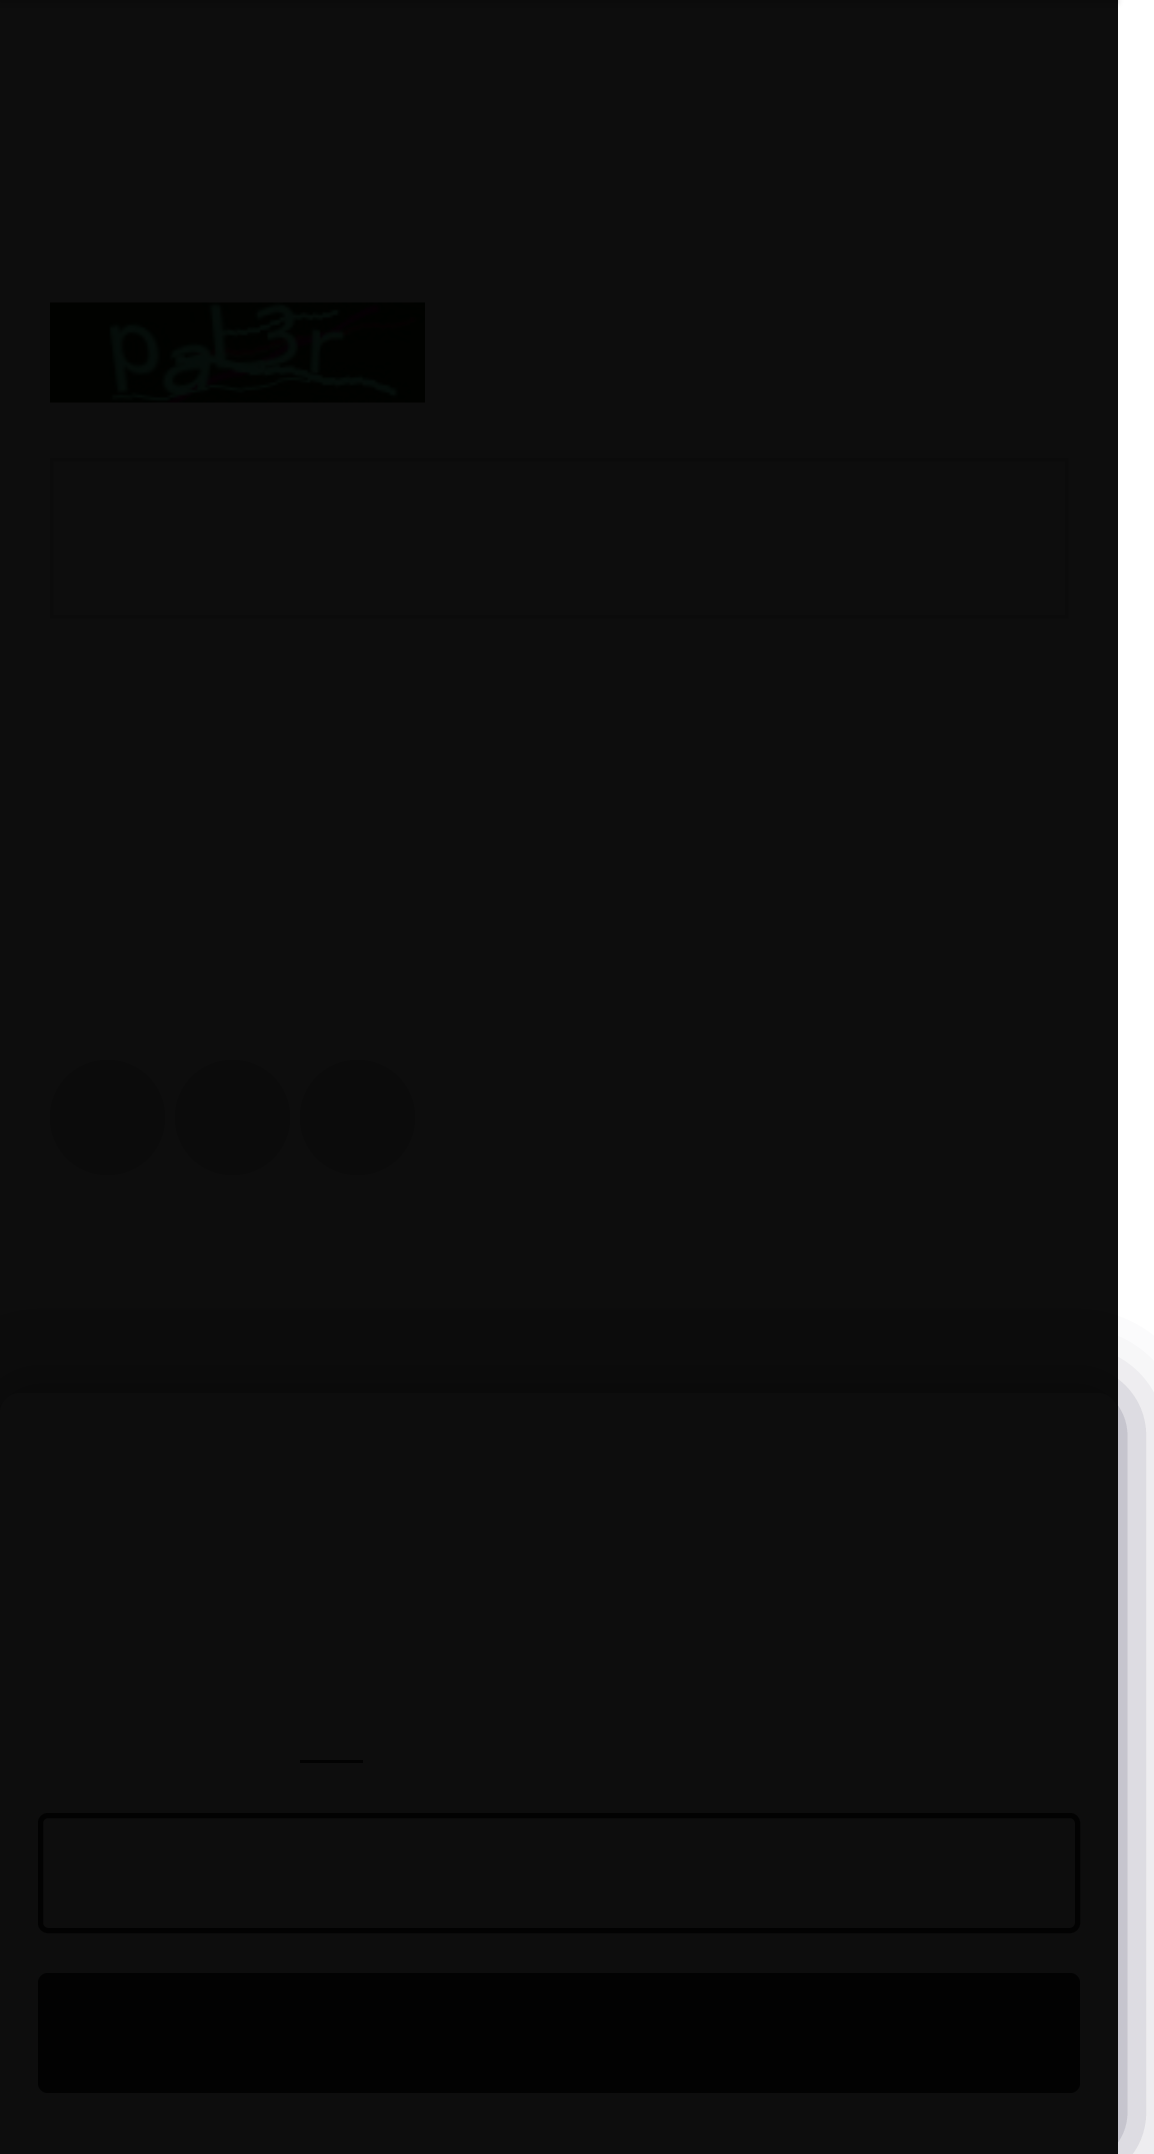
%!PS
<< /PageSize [1154 2154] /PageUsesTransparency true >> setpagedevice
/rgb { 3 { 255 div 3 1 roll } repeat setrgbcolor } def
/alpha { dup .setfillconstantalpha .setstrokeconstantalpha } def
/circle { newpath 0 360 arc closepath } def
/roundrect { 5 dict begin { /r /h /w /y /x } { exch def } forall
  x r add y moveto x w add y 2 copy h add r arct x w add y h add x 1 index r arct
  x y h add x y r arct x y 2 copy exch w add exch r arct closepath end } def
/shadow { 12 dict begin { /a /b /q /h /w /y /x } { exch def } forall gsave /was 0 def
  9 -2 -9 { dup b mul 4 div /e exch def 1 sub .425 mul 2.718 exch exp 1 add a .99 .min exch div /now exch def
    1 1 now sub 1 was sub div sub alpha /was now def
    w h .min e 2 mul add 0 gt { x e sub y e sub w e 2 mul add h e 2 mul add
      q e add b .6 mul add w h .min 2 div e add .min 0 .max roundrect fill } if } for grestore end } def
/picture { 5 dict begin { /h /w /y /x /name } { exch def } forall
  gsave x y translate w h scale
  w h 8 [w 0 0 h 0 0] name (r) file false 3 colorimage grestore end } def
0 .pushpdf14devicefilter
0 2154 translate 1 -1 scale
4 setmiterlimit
255 255 255 rgb
0 0 1154 2154 rectfill
247 247 247 rgb
0 0 1118 1413 rectfill
(img/1.rgb) 50 302 375 101 picture
255 255 255 rgb
51.5 459.5 moveto 1066.5 459.5 lineto 1066.5 616.5 lineto 51.5 616.5 lineto closepath gsave fill grestore
207 207 207 rgb
3 setlinewidth
stroke
107.5 1117.5 57.5 circle fill
232.5 1117.5 57.5 circle fill
357.5 1117.5 57.5 circle fill
0 0 0 rgb
0 -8 1118 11 0 2.5 0.16 shadow
27 25 57 rgb
0 1393 1118 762 20 37.5 0.5 shadow
248 250 251 rgb
20 1393 moveto 1098 1393 lineto 1109 1393 1118 1402 1118 1413 curveto 1118 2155 lineto 0 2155 lineto 0 1413 lineto 0 1402 9 1393 20 1393 curveto closepath fill
37 37 37 rgb
300 1760 63 3 rectfill
5 setlinewidth
40.5 1815.5 1037 115 7.5 roundrect stroke
38 1973 1042 120 10 roundrect fill
0.95 alpha
0 0 0 rgb
0 0 1118 2154 rectfill
.poppdf14devicefilter showpage
